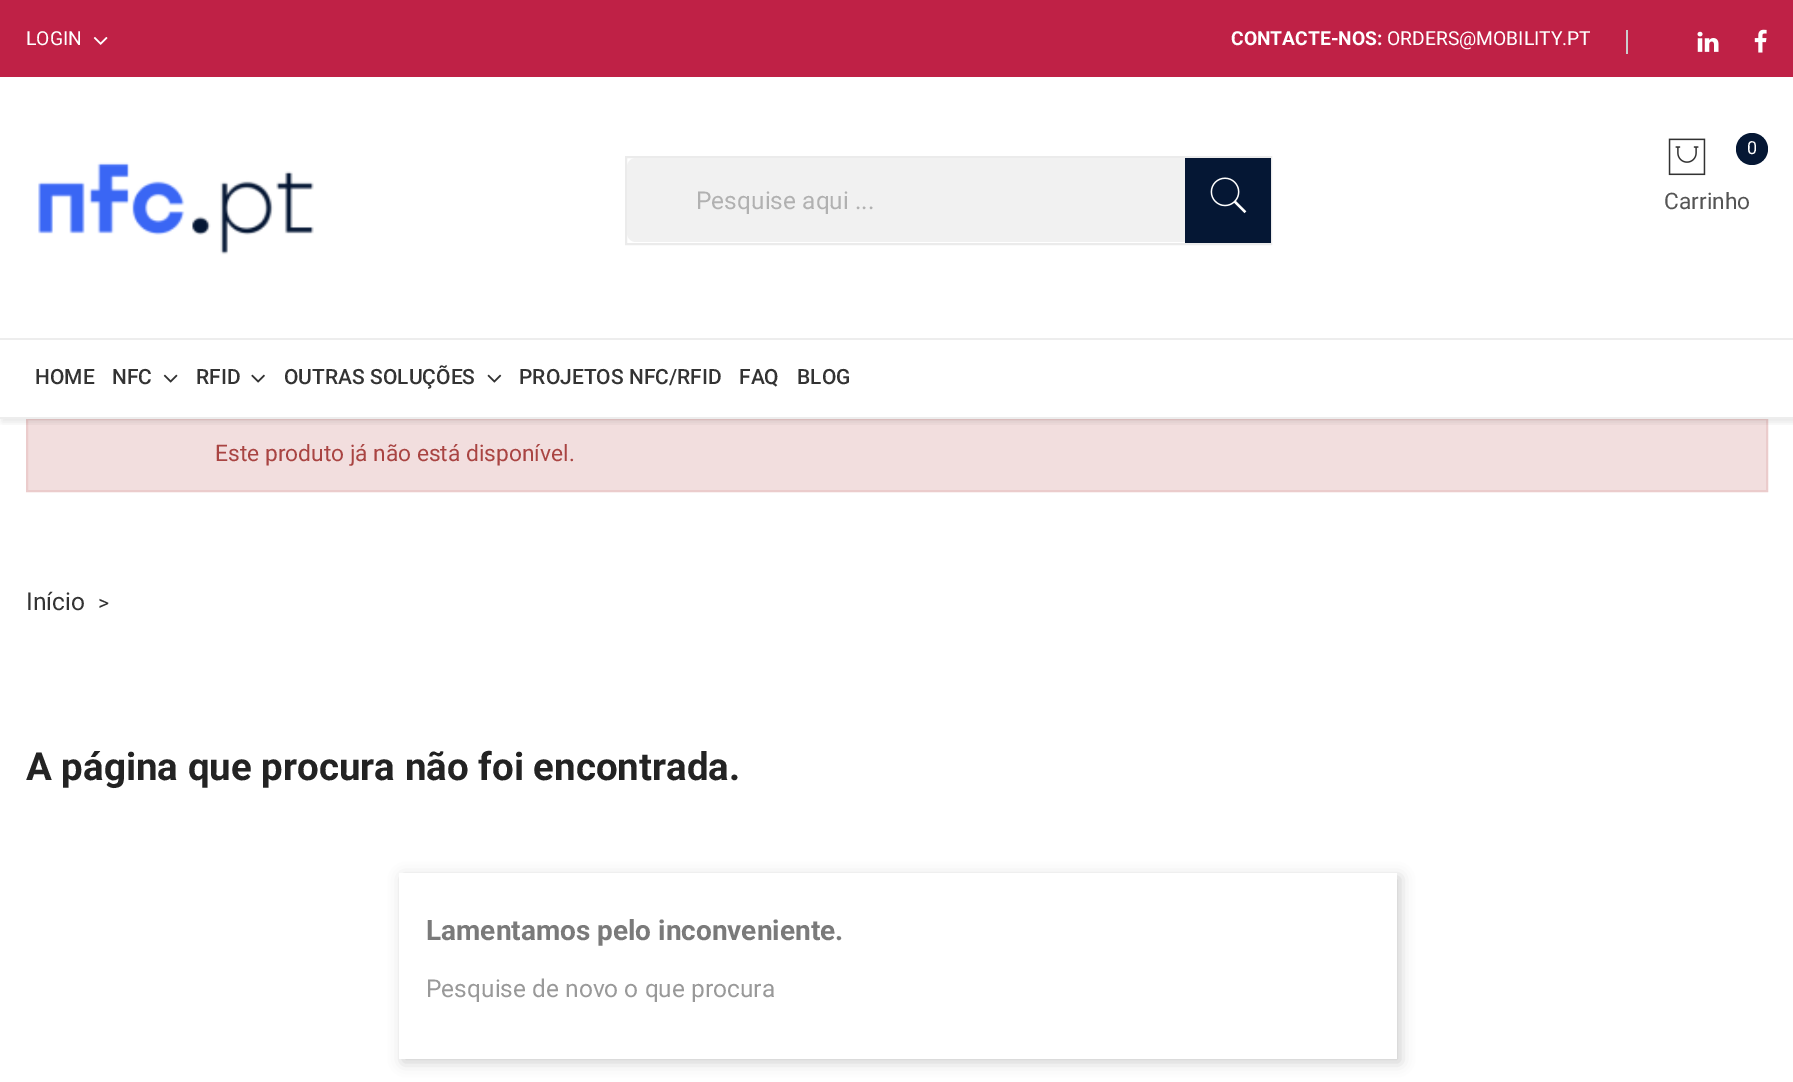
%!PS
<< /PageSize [1793 1082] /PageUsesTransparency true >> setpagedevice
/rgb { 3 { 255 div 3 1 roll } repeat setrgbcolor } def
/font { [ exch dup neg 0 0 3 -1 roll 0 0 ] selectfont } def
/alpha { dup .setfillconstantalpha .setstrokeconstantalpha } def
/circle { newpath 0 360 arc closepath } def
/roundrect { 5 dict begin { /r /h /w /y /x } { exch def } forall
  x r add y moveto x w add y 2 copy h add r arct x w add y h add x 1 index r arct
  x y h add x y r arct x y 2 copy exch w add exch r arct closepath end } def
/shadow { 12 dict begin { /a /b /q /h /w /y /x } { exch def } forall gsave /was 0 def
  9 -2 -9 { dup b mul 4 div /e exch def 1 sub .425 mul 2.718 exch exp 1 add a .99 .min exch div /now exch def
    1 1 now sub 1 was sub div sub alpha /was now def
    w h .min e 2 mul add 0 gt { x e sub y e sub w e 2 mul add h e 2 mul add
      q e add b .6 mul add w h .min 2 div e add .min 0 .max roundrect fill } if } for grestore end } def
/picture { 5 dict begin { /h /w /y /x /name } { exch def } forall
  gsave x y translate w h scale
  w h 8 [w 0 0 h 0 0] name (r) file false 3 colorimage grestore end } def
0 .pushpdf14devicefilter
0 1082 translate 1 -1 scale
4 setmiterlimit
255 255 255 rgb
0 0 1793 1082 rectfill
191 33 70 rgb
0 0 1793 77 rectfill
(img/1.rgb) 93 37 15 8 picture
204 204 204 rgb
1626 30 2 24 rectfill
(img/2.rgb) 1697 31 22 21 picture
(img/3.rgb) 1754 29 13 24 picture
(img/4.rgb) 38 162 276 93 picture
235 235 235 rgb
2 setlinewidth
626 157 645 87 rectstroke
241 241 241 rgb
627 158 644 84 9 roundrect fill
5 23 52 rgb
1185 158 86 85 rectfill
(img/5.rgb) 1210 177 37 37 picture
(img/6.rgb) 1668 138 38 38 picture
1752 149 16 circle fill
242 222 222 rgb
27 419 moveto 1767 419 lineto 1767 491 lineto 27 491 lineto closepath gsave fill grestore
235 204 204 rgb
stroke
gsave
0 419 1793 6 rectclip
0 0 0 rgb
2 341 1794 81 0 3.5 0.1 shadow
grestore
237 237 237 rgb
0 338 1793 2 rectfill
0 417 1793 2 rectfill
(img/7.rgb) 163 374 15 9 picture
(img/8.rgb) 251 374 14 9 picture
(img/9.rgb) 487 374 15 9 picture
0 0 0 rgb
403 877 997 185 0 7 0.2 shadow
255 255 255 rgb
399 873 998 186 rectfill
/Roboto-Regular 19.25 font
26 45 moveto (LOGIN) show
/Roboto-Bold 19.25 font
1231 45 moveto (CONTACTE-NOS:) show
/Roboto-Regular 19.25 font
1387 45 moveto (ORDERS@MOBILITY.PT) show
/Roboto-Regular 24.5 font
177 177 177 rgb
696 209 moveto (Pesquise aqui ...) show
/Roboto-Regular 18 font
255 255 255 rgb
1747 154 moveto (0) show
/Roboto-Regular 22.75 font
85 85 85 rgb
1664 209 moveto (Carrinho) show
/Roboto-Medium 21 font
51 51 51 rgb
[
  [(HOME) 35 384]
  [(NFC) 112 384]
  [(RFID) 196 384]
  [(OUTRAS SOLUÇÕES) 284 384]
  [(PROJETOS NFC/RFID) 519 384]
  [(FAQ) 739 384]
  [(BLOG) 797 384]
] { aload pop moveto show } forall
/Roboto-Regular 22.75 font
169 68 66 rgb
215 461 moveto (Este produto já não está disponível.) show
/Roboto-Regular 24.5 font
51 51 51 rgb
26 610 moveto (Início) show
/Roboto-Regular 21 font
98 610 moveto (>) show
/Roboto-Bold 38.5 font
35 35 35 rgb
26 780 moveto (A página que procura não foi encontrada.) show
/Roboto-Bold 28 font
122 122 122 rgb
426 940 moveto (Lamentamos pelo inconveniente.) show
/Roboto-Regular 24.5 font
153 153 153 rgb
426 997 moveto (Pesquise de novo o que procura) show
.poppdf14devicefilter showpage
